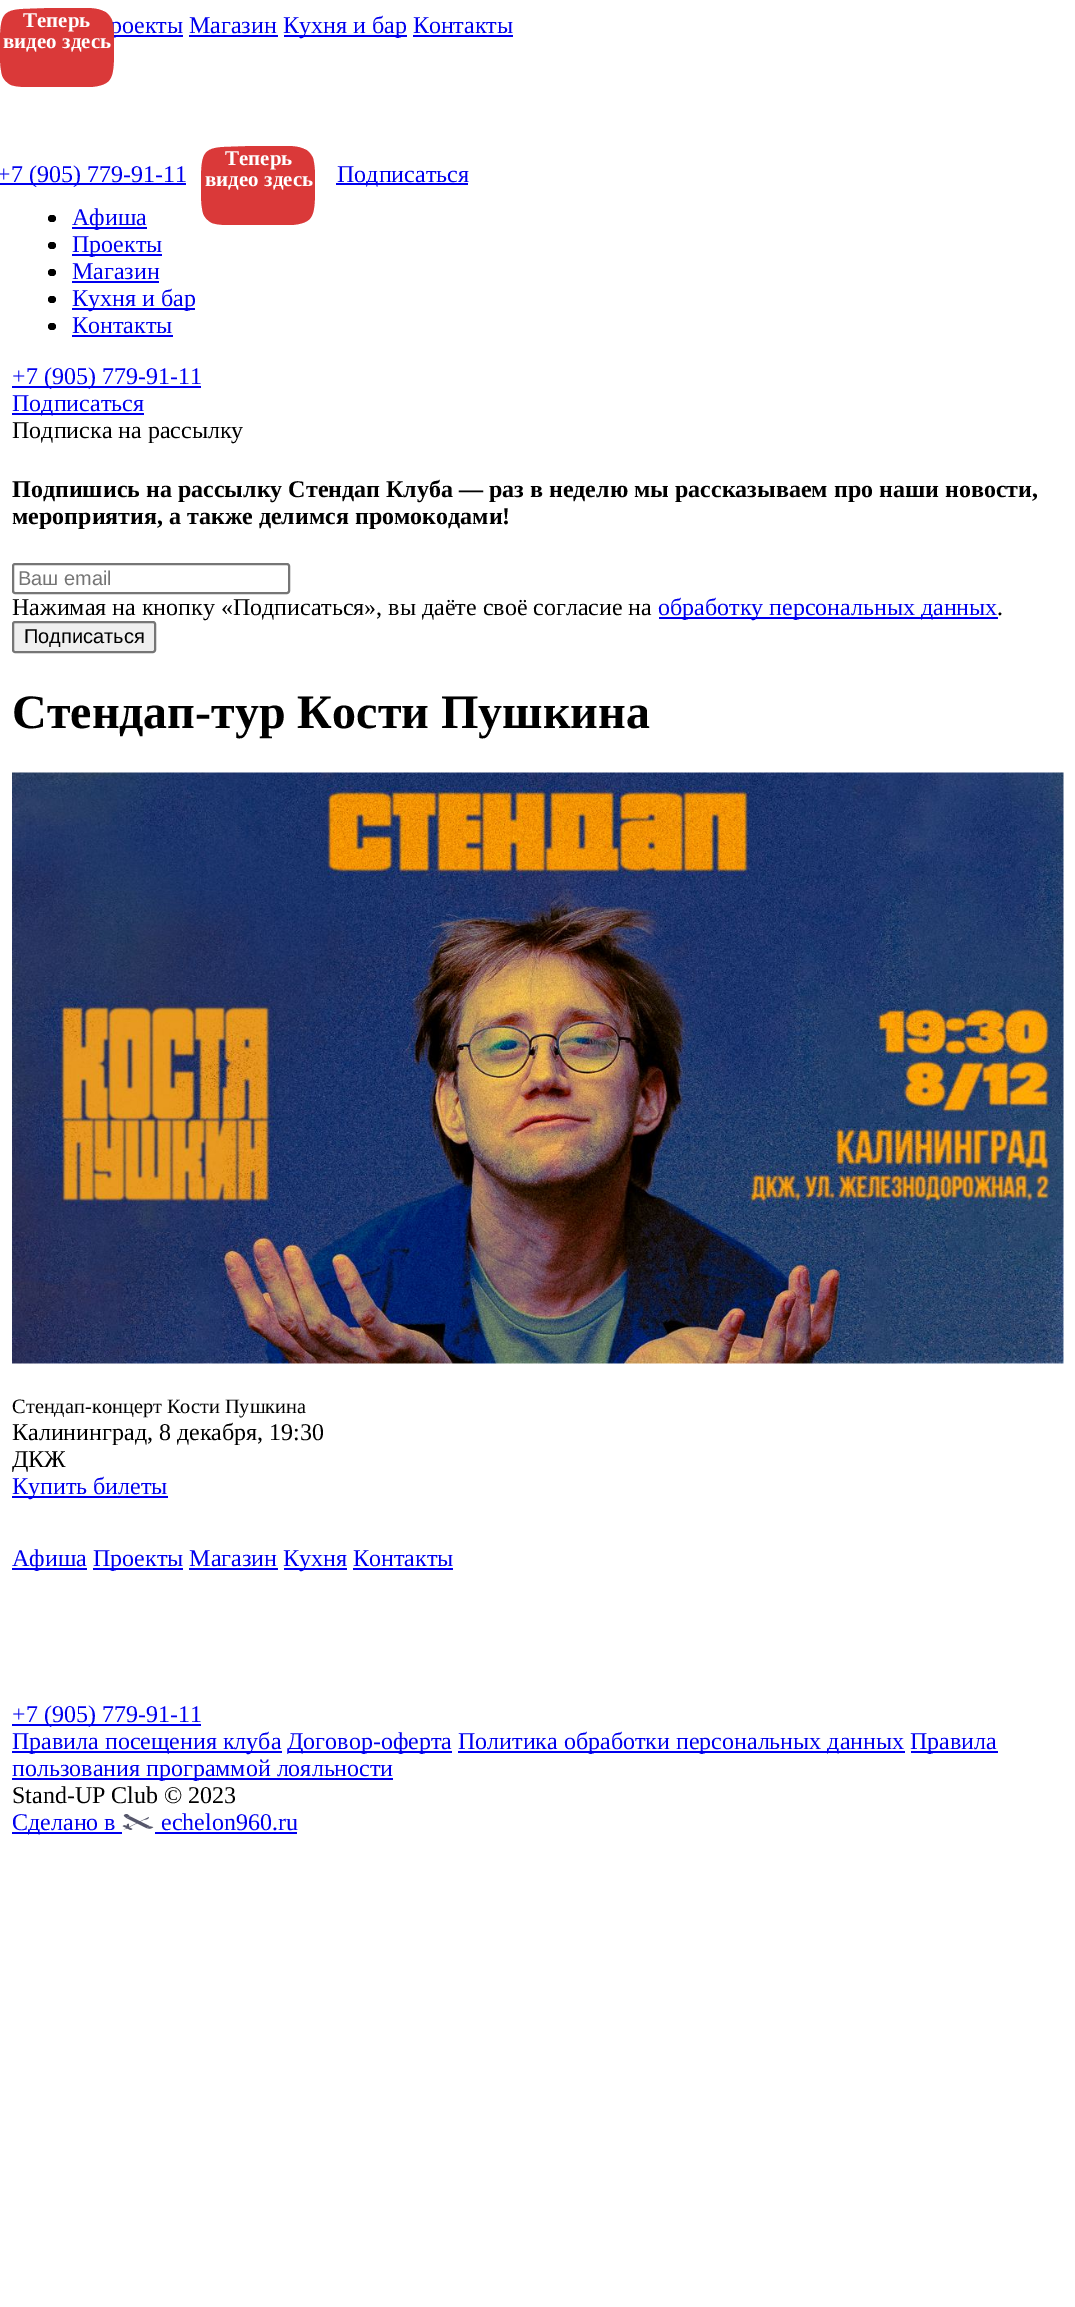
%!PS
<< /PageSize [1075 2307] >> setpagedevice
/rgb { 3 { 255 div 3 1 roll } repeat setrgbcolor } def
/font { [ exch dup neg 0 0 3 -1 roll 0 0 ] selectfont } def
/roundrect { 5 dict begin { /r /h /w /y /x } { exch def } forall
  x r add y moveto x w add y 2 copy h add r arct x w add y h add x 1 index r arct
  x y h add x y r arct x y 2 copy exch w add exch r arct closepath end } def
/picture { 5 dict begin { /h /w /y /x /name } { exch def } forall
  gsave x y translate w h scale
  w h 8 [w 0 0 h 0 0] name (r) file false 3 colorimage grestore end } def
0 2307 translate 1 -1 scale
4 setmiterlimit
255 255 255 rgb
0 0 1075 2307 rectfill
[
  [114 35 69 2 0 0 238]
  [284 35 123 2 0 0 238]
  [189 35 89 2 0 0 238]
  [413 35 100 2 0 0 238]
  [0 183 186 2 0 0 238]
] { aload pop rgb rectfill } forall
gsave
201 146 114 79 rectclip
218 57 57 rgb
313 158 moveto 311 154 308 150 304 149 curveto 298 146 291 146 285 146 curveto 252 146 lineto 224 147 lineto 203 148 202 155 201 175 curveto 201 188 200 201 203 213 curveto 204 217 208 221 212 223 curveto 218 225 225 225 231 225 curveto 260 226 lineto 292 225 lineto 313 223 314 216 315 196 curveto 315 184 316 170 313 158 curveto closepath fill
grestore
336 183 132 2 rectfill
0 0 0 rgb
48 215 8 7 3.5 roundrect fill
0 0 238 rgb
72 227 75 2 rectfill
0 0 0 rgb
48 242 8 7 3.5 roundrect fill
0 0 238 rgb
72 254 90 2 rectfill
0 0 0 rgb
48 269 8 7 3.5 roundrect fill
0 0 238 rgb
72 281 87 2 rectfill
0 0 0 rgb
48 296 8 7 3.5 roundrect fill
0 0 238 rgb
72 308 123 2 rectfill
0 0 0 rgb
48 323 8 7 3.5 roundrect fill
[
  [72 335 101 2 0 0 238]
  [12 386 189 2 0 0 238]
  [12 413 132 2 0 0 238]
] { aload pop rgb rectfill } forall
118 118 118 rgb
2 setlinewidth
13 564 276 29 2 roundrect stroke
0 0 238 rgb
659 617 339 2 rectfill
239 239 239 rgb
13 622 142 30 2 roundrect gsave fill grestore
118 118 118 rgb
stroke
(img/1.rgb) 12 772 1052 592 picture
[
  [12 1496 156 2 0 0 238]
  [12 1568 75 2 0 0 238]
  [93 1568 90 2 0 0 238]
  [284 1568 63 2 0 0 238]
  [189 1568 89 2 0 0 238]
  [353 1568 100 2 0 0 238]
  [12 1724 189 2 0 0 238]
  [12 1751 270 2 0 0 238]
  [288 1751 164 2 0 0 238]
  [458 1751 447 2 0 0 238]
  [911 1751 87 2 0 0 238]
  [12 1778 381 2 0 0 238]
  [12 1832 110 2 0 0 238]
] { aload pop rgb rectfill } forall
(img/2.rgb) 122 1814 32 16 picture
155 1832 142 2 rectfill
/LiberationSerif-Regular 24 font
110 33 moveto (роекты Магазин) show
gsave
0 8 114 79 rectclip
218 57 57 rgb
112 20 moveto 110 16 107 12 103 11 curveto 97 8 90 8 84 8 curveto 51 8 lineto 23 9 lineto 2 10 1 17 0 37 curveto 0 50 -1 63 2 75 curveto 3 79 7 83 11 85 curveto 17 87 24 87 30 87 curveto 59 88 lineto 91 87 lineto 112 85 113 78 114 58 curveto 114 46 115 32 112 20 curveto closepath fill
grestore
/LiberationSerif-Bold 21 font
255 255 255 rgb
3 48 moveto (видео здесь) show
23 27 moveto (Теперь) show
/LiberationSerif-Regular 24 font
0 0 238 rgb
283 33 moveto (Кухня и бар Контакты) show
-3 182 moveto (+7 \(905\) 779-91-11) show
/LiberationSerif-Bold 21 font
255 255 255 rgb
225 165 moveto (Теперь) show
205 186 moveto (видео здесь) show
/LiberationSerif-Regular 24 font
0 0 238 rgb
[
  [(Подписаться) 337 182]
  [(Афиша) 72 225]
  [(Проекты) 72 252]
  [(Магазин) 72 279]
  [(Кухня и бар) 72 306]
  [(Контакты) 72 333]
  [(+7 \(905\) 779-91-11) 12 384]
  [(Подписаться) 12 411]
] { aload pop moveto show } forall
0 0 0 rgb
12 438 moveto (Подписка на рассылку) show
/LiberationSerif-Bold 24 font
12 497 moveto (Подпишись на рассылку Стендап Клуба — раз в неделю мы рассказываем про наши новости,) show
12 524 moveto (мероприятия, а также делимся промокодами!) show
/LiberationSans-Regular 20 font
117 117 117 rgb
18 585 moveto (Ваш email) show
/LiberationSerif-Regular 24 font
0 0 0 rgb
12 615 moveto (Нажимая на кнопку «Подписаться», вы даёте своё согласие на) show
0 0 238 rgb
658 615 moveto (обработку персональных данных) show
0 0 0 rgb
997 615 moveto (.) show
/LiberationSans-Regular 20 font
24 643 moveto (Подписаться) show
/LiberationSerif-Bold 48 font
12 728 moveto (Стендап-тур Кости Пушкина) show
/LiberationSerif-Regular 20.4 font
12 1413 moveto (Стендап-концерт Кости Пушкина) show
/LiberationSerif-Regular 24 font
12 1440 moveto (Калининград, 8 декабря, 19:30) show
12 1467 moveto (ДКЖ) show
0 0 238 rgb
[
  [(Купить билеты) 12 1494]
  [(Афиша) 12 1566]
  [(Проекты Магазин) 93 1566]
  [(Кухня Контакты) 283 1566]
  [(+7 \(905\) 779-91-11) 12 1722]
  [(Правила посещения клуба) 12 1749]
  [(Договор-оферта) 287 1749]
  [(Политика обработки персональных данных) 458 1749]
  [(Правила) 910 1749]
  [(пользования программой лояльности) 12 1776]
] { aload pop moveto show } forall
0 0 0 rgb
12 1803 moveto (Stand-UP Club © 2023) show
0 0 238 rgb
12 1830 moveto (Сделано в) show
161 1830 moveto (echelon960.ru) show
showpage
